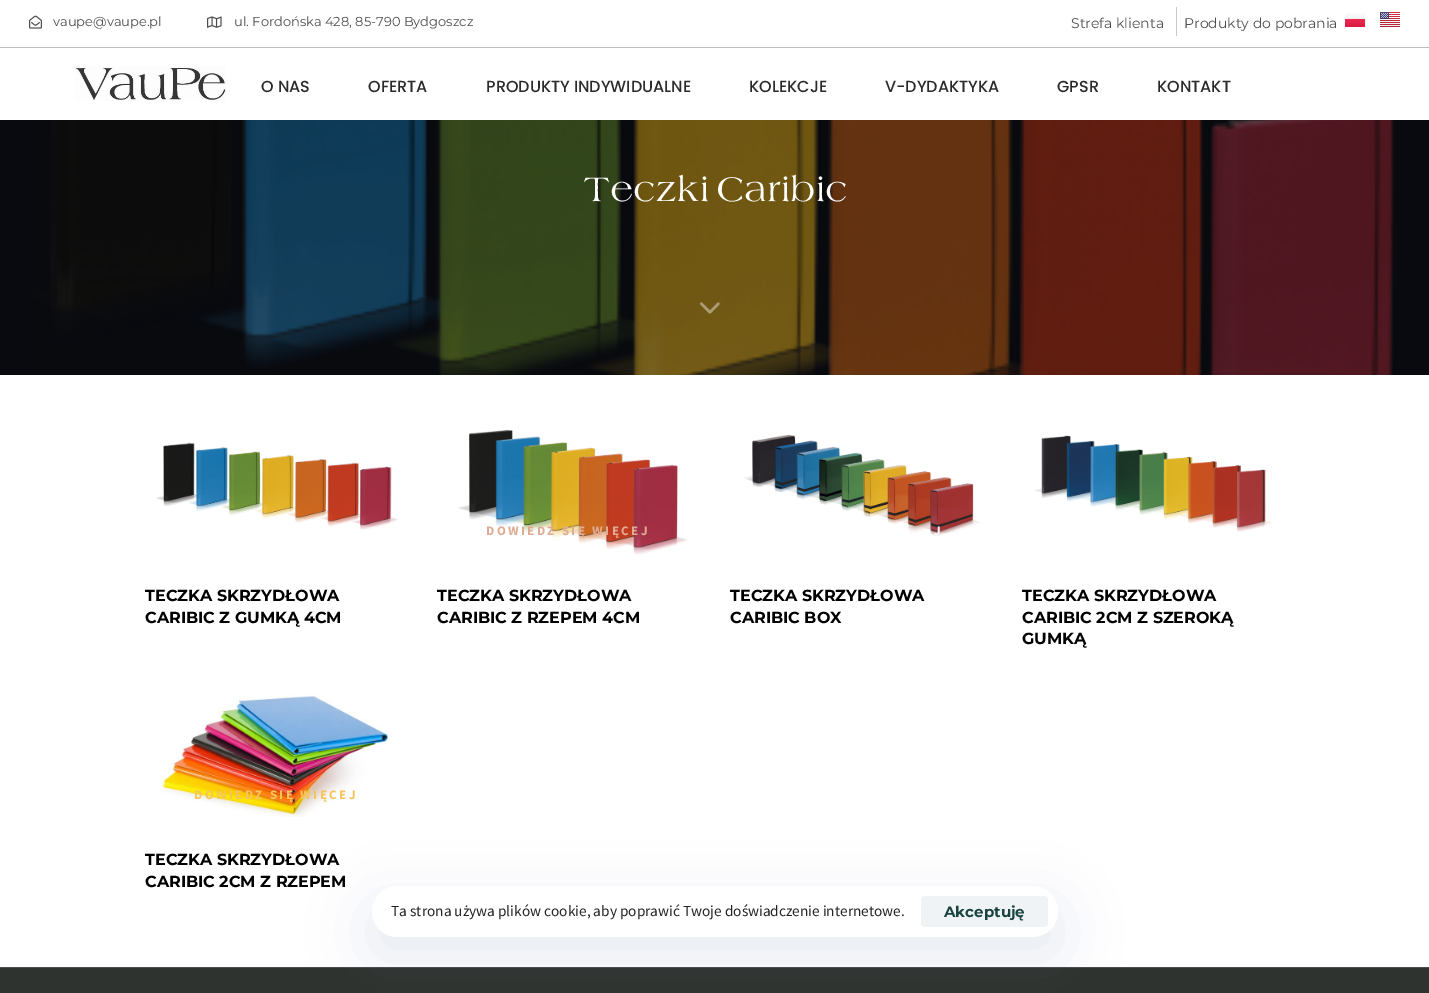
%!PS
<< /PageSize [1429 993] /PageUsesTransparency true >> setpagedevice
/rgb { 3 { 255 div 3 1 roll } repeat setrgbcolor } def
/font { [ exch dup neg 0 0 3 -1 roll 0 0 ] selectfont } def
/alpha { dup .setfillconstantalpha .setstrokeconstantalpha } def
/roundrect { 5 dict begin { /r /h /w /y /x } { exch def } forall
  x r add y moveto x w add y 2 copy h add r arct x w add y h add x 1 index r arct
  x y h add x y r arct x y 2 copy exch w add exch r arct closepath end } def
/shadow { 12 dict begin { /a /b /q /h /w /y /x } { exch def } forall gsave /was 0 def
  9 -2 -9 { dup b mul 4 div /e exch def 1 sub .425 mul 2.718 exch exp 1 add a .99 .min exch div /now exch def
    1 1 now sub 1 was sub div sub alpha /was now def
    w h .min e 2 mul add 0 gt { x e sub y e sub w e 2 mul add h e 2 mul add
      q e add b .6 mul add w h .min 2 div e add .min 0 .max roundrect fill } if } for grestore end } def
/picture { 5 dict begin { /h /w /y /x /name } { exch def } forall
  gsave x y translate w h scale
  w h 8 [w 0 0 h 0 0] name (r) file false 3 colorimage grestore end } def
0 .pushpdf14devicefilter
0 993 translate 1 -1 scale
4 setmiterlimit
255 255 255 rgb
0 0 1429 993 rectfill
(img/1.rgb) 29 15 13 14 picture
(img/2.rgb) 207 16 15 12 picture
201 201 201 rgb
1176 7 1 29 rectfill
gsave 1345 13 moveto 1365 13 lineto 1365 19 lineto 1345 19 lineto closepath clip newpath
<< /ShadingType 2 /ColorSpace /DeviceRGB /Coords [1356 12 1356 19] /Extend [true true] /Function << /FunctionType 2 /Domain [0 1] /C0 [1 1 1] /C1 [0.941 0.941 0.941] /N 1 >> >> shfill grestore
gsave 1345 19 moveto 1365 19 lineto 1365 27 lineto 1345 27 lineto closepath clip newpath
<< /ShadingType 2 /ColorSpace /DeviceRGB /Coords [1356 19 1356 27] /Extend [true true] /Function << /FunctionType 2 /Domain [0 1] /C0 [0.922 0.165 0.314] /C1 [0.855 0.106 0.251] /N 1 >> >> shfill grestore
(img/3.rgb) 1380 12 20 15 picture
190 190 190 rgb
0 47 1429 1 rectfill
(img/4.rgb) 75 66 151 35 picture
8 10 15 rgb
0 120 1429 255 rectfill
(img/5.rgb) 33 120 1363 255 picture
(img/6.rgb) 700 302 20 12 picture
(img/7.rgb) 156 442 241 88 picture
(img/8.rgb) 458 429 230 126 picture
(img/9.rgb) 744 434 237 102 picture
(img/10.rgb) 1034 435 238 97 picture
(img/11.rgb) 161 693 229 124 picture
47 51 47 rgb
0 968 1429 25 rectfill
74 78 74 rgb
0 967 1429 1 rectfill
92 107 149 rgb
372 906 686 51 25.5 30 0.15 shadow
255 255 255 rgb
372 886 686 51 25.5 roundrect fill
239 243 245 rgb
921 896 127 31 4 roundrect fill
/Montserrat-Regular 13 font
78 78 78 rgb
53 26 moveto (vaupe@vaupe.pl) show
234 26 moveto (ul. Fordońska 428, 85-790 Bydgoszcz) show
/Montserrat-Regular 14 font
1071 28 moveto (Strefa klienta) show
1184 28 moveto (Produkty do pobrania) show
/Poppins-Medium 16 font
43 43 43 rgb
[
  [(O NAS) 261 92]
  [(OFERTA) 368 92]
  [(PRODUKTY INDYWIDUALNE) 486 92]
  [(KOLEKCJE) 749 92]
  [(V-DYDAKTYKA) 885 92]
  [(GPSR) 1057 92]
  [(KONTAKT) 1157 92]
] { aload pop moveto show } forall
/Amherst-Regular 35 font
255 255 255 rgb
583 201 moveto (Teczki Caribic) show
/Montserrat-Bold 16 font
0 0 0 rgb
145 601 moveto (TECZKA SKRZYDŁOWA) show
145 623 moveto (CARIBIC Z GUMKĄ 4CM) show
/SourceSansPro-Bold 13 font
222 172 149 rgb
486 535 moveto 2.4 0 (DOWIEDZ SIĘ WIĘCEJ) ashow
/Montserrat-Bold 16 font
0 0 0 rgb
437 601 moveto (TECZKA SKRZYDŁOWA) show
437 623 moveto (CARIBIC Z RZEPEM 4CM) show
/SourceSansPro-Bold 13 font
250 247 246 rgb
934 535 moveto 2.4 0 (J) ashow
/Montserrat-Bold 16 font
0 0 0 rgb
[
  [(TECZKA SKRZYDŁOWA) 730 601]
  [(CARIBIC BOX) 730 623]
  [(TECZKA SKRZYDŁOWA) 1022 601]
  [(CARIBIC 2CM Z SZEROKĄ) 1022 623]
  [(GUMKĄ) 1022 644]
] { aload pop moveto show } forall
/SourceSansPro-Bold 13 font
245 196 95 rgb
194 799 moveto 2.4 0 (DOWIEDZ SIĘ WIĘCEJ) ashow
/Montserrat-Bold 16 font
0 0 0 rgb
145 865 moveto (TECZKA SKRZYDŁOWA) show
145 887 moveto (CARIBIC 2CM Z RZEPEM) show
/SourceSansPro-Regular 15.3 font
36 36 36 rgb
391 916 moveto (Ta strona używa plików cookie, aby poprawić Twoje doświadczenie internetowe.) show
/Montserrat-Bold 15 font
24 67 65 rgb
944 917 moveto (Akceptuję) show
.poppdf14devicefilter showpage
